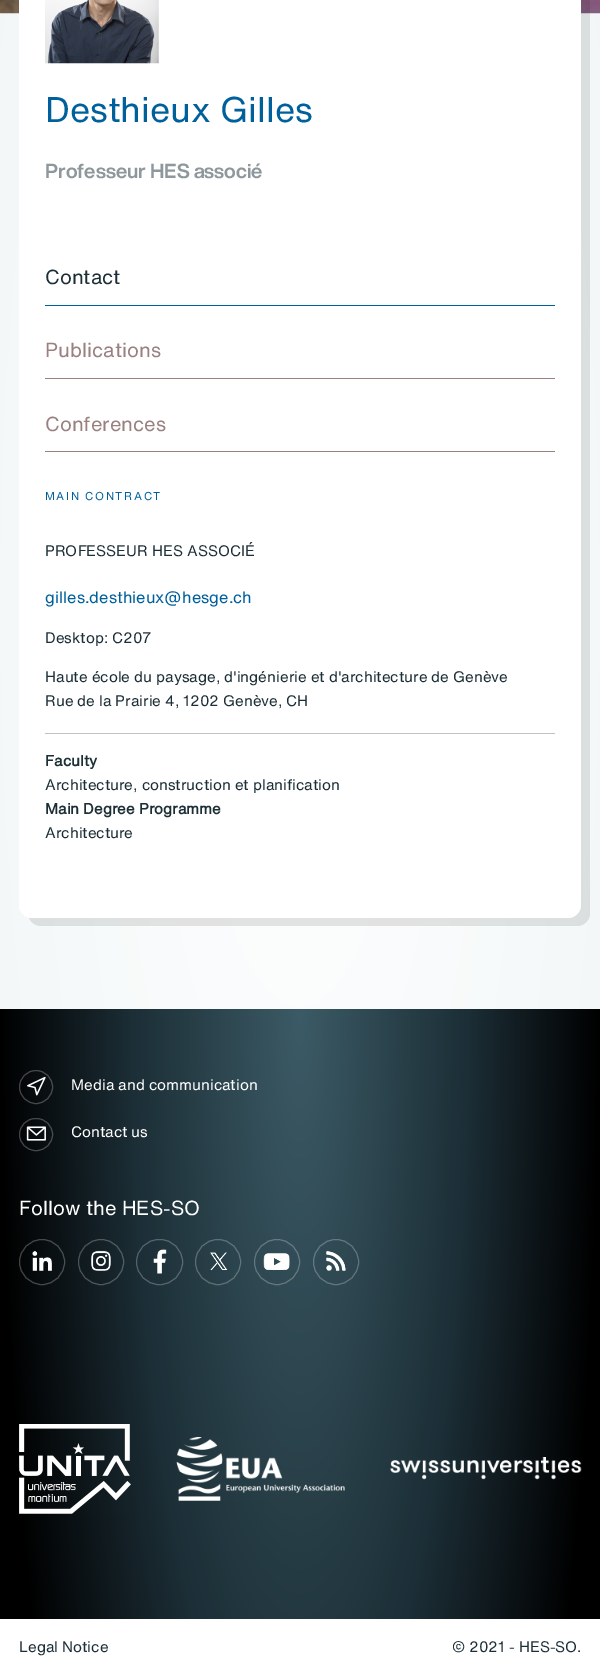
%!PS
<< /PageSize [600 1677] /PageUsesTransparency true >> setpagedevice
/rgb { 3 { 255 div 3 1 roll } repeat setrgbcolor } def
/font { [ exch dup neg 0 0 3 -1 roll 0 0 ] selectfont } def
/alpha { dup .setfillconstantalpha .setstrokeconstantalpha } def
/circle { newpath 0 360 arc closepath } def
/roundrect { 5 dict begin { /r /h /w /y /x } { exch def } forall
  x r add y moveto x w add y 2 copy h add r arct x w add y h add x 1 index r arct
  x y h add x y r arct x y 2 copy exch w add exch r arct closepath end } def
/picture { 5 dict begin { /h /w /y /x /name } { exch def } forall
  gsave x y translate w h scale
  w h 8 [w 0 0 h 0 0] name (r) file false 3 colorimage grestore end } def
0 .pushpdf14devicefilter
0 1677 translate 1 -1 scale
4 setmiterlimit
255 255 255 rgb
0 0 600 1677 rectfill
gsave 0 13 moveto 600 13 lineto 600 1009 lineto 0 1009 lineto closepath clip newpath 300 605 translate 600 2145 scale
<< /ShadingType 3 /ColorSpace /DeviceRGB /Coords [0 0 0 0 0 1] /Extend [true true] /Function << /FunctionType 3 /Domain [0 1] /Functions [<< /FunctionType 2 /Domain [0 1] /C0 [1 1 1] /C1 [0.925 0.949 0.953] /N 1 >> << /FunctionType 2 /Domain [0 1] /C0 [0.925 0.949 0.953] /C1 [0.925 0.949 0.953] /N 1 >>] /Bounds [0.92] /Encode [0 1 0 1] >> >> shfill grestore
(img/1.rgb) 0 0 600 14 picture
0.1 alpha
0 0 0 rgb
28 -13 562 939 13 roundrect fill
1 alpha
255 255 255 rgb
32 -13 moveto 581 -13 lineto 581 905 lineto 581 912 575 918 568 918 curveto 32 918 lineto 25 918 19 912 19 905 curveto 19 0 lineto 19 -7 25 -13 32 -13 curveto closepath fill
(img/2.rgb) 45 0 114 64 picture
[
  [45 305 510 1 0 96 156]
  [45 378 510 1 153 129 128]
  [45 451 510 1 153 129 128]
  [45 733 510 1 194 194 194]
] { aload pop rgb rectfill } forall
gsave 0 1009 moveto 600 1009 lineto 600 1619 lineto 0 1619 lineto closepath clip newpath 300 1009 translate 300 1403 scale
<< /ShadingType 3 /ColorSpace /DeviceRGB /Coords [0 0 0 0 0 1] /Extend [true true] /Function << /FunctionType 3 /Domain [0 1] /Functions [<< /FunctionType 2 /Domain [0 1] /C0 [0.235 0.357 0.4] /C1 [0.11 0.18 0.212] /N 1 >> << /FunctionType 2 /Domain [0 1] /C0 [0.11 0.18 0.212] /C1 [0 0 0] /N 1 >>] /Bounds [0.56] /Encode [0 1 0 1] >> >> shfill grestore
0.25 alpha
255 255 255 rgb
36 1087 16.5 circle stroke
1 alpha
(img/3.rgb) 27 1076 19 20 picture
0.25 alpha
19.5 1118.5 33 32 16 roundrect stroke
1 alpha
(img/4.rgb) 26 1126 20 15 picture
0.25 alpha
42 1262 22.5 circle stroke
1 alpha
(img/5.rgb) 32 1251 20 20 picture
0.25 alpha
101 1262 22.5 circle stroke
1 alpha
(img/6.rgb) 91 1250 20 21 picture
0.25 alpha
136.5 1239.5 46 45 22.5 roundrect stroke
1 alpha
(img/7.rgb) 153 1249 14 25 picture
0.25 alpha
218 1262 22.5 circle stroke
1 alpha
(img/8.rgb) 210 1252 18 18 picture
0.25 alpha
277 1262 22.5 circle stroke
1 alpha
(img/9.rgb) 263 1253 27 17 picture
0.25 alpha
336 1262 22.5 circle stroke
1 alpha
(img/10.rgb) 326 1251 20 20 picture
(img/11.rgb) 19 1424 112 90 picture
(img/12.rgb) 176 1437 169 64 picture
(img/13.rgb) 390 1457 192 23 picture
/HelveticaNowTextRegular-Regular 35 font
0 96 156 rgb
45 122 moveto (Desthieux Gilles) show
/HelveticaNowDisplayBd-Regular 20 font
142 151 155 rgb
45 178 moveto (Professeur HES associé) show
/HelveticaNowTextRegular-Regular 20 font
28 46 54 rgb
45 284 moveto (Contact) show
153 129 128 rgb
45 357 moveto (Publications) show
45 431 moveto (Conferences) show
/HelveticaNowTextRegular-Regular 11.25 font
0 96 156 rgb
45 500 moveto 1.6 0 (MAIN CONTRACT) ashow
/HelveticaNowTextRegular-Regular 15 font
28 46 54 rgb
45 556 moveto (PROFESSEUR HES ASSOCIÉ) show
/HelveticaNowTextRegular-Regular 16.25 font
0 96 156 rgb
45 603 moveto (gilles.desthieux@hesge.ch) show
/HelveticaNowTextRegular-Regular 15 font
28 46 54 rgb
[
  [(Desktop: C207) 45 643]
  [(Haute école du paysage, d'ingénierie et d'architecture de Genève) 45 682]
  [(Rue de la Prairie 4, 1202 Genève, CH) 45 706]
] { aload pop moveto show } forall
/HelveticaNowTextRegular-Bold 15 font
45 766 moveto (Faculty) show
/HelveticaNowTextRegular-Regular 15 font
45 790 moveto (Architecture, construction et planification) show
/HelveticaNowTextRegular-Bold 15 font
45 814 moveto (Main Degree Programme) show
/HelveticaNowTextRegular-Regular 15 font
45 838 moveto (Architecture) show
255 255 255 rgb
71 1090 moveto (Media and communication) show
71 1137 moveto (Contact us) show
/HelveticaNowTextRegular-Regular 20 font
19 1215 moveto (Follow the HES-SO) show
/HelveticaNowTextRegular-Regular 15 font
28 46 54 rgb
19 1652 moveto (Legal Notice) show
452 1652 moveto (© 2021 - HES-SO.) show
.poppdf14devicefilter showpage
